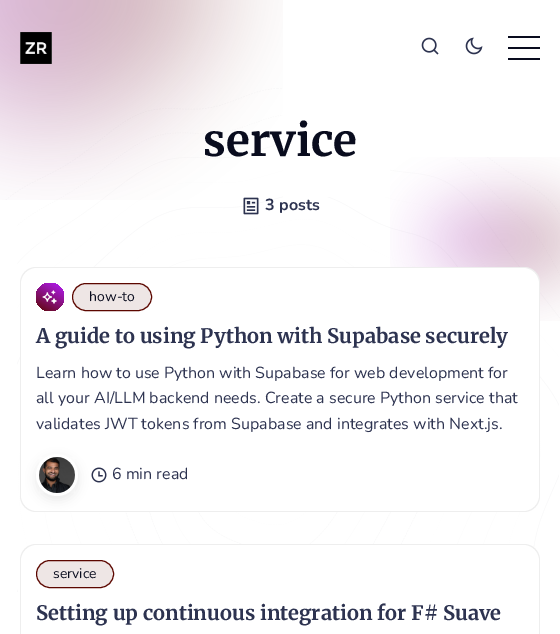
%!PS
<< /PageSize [560 634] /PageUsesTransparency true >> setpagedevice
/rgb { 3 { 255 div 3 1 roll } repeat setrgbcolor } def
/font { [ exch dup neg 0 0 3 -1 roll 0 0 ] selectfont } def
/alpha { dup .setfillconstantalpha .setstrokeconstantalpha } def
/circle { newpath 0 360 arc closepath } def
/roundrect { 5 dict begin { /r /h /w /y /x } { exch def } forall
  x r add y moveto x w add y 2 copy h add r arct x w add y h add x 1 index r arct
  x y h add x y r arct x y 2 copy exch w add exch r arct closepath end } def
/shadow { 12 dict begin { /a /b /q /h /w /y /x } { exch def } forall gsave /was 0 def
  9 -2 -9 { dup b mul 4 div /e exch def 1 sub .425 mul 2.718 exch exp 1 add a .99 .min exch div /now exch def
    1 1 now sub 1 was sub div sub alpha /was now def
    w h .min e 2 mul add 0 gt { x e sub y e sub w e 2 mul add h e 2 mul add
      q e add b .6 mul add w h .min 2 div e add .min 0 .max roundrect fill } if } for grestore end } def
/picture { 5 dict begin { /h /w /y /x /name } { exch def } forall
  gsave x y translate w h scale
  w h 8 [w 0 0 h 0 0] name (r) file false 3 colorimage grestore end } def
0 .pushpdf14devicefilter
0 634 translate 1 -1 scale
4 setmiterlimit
255 255 255 rgb
0 0 560 634 rectfill
(img/3.rgb) 17 197 542 395 picture
(img/1.rgb) 0 0 283 200 picture
(img/2.rgb) 390 157 170 164 picture
(img/4.rgb) 20 32 32 32 picture
(img/5.rgb) 421 37 18 18 picture
(img/6.rgb) 465 37 18 18 picture
[
  [508 47 32 2 9 12 30]
  [508 36 32 2 9 12 30]
  [508 58 32 2 9 12 30]
] { aload pop rgb rectfill } forall
(img/7.rgb) 243 197 16 18 picture
238 238 238 rgb
20 267 520 245 16 roundrect fill
255 255 255 rgb
21 268 518 243 16 roundrect fill
gsave 50 297 14 circle clip newpath
<< /ShadingType 2 /ColorSpace /DeviceRGB /Coords [40 314 60 280] /Extend [true true] /Function << /FunctionType 2 /Domain [0 1] /C0 [0.361 0.027 0] /C1 [0.714 0.11 1] /N 1 >> >> shfill grestore
(img/8.rgb) 42 290 15 14 picture
92 7 0 rgb
72.5 283.5 79 27 13.5 roundrect stroke
0.1 alpha
73 284 78 26 13 roundrect fill
1 alpha
(img/10.rgb) 91 467 16 16 picture
0 0 0 rgb
36 458 42 42 21 5 0.08 shadow
255 255 255 rgb
57 475 21 circle fill
(img/9.rgb) 39 457 36 36 picture
238 238 238 rgb
20 544 520 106 16 roundrect fill
255 255 255 rgb
21 545 518 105 16 roundrect fill
92 7 0 rgb
36.5 560.5 77 27 13.5 roundrect stroke
0.1 alpha
37 561 76 26 13 roundrect fill
/Merriweather-Bold 44 font
1 alpha
9 12 30 rgb
203 156 moveto (service) show
/Nunito-Bold 16 font
45 51 80 rgb
265 210 moveto (3 posts) show
/Nunito-Regular 14 font
9 12 30 rgb
89 301 moveto (how-to) show
/Merriweather-Bold 20 font
45 51 80 rgb
36 343 moveto (A guide to using Python with Supabase securely) show
/Nunito-Regular 16 font
[
  [(Learn how to use Python with Supabase for web development for) 36 378]
  [(all your AI/LLM backend needs. Create a secure Python service that) 36 403]
  [(validates JWT tokens from Supabase and integrates with Next.js.) 36 429]
  [(6 min read) 112 479]
] { aload pop moveto show } forall
/Nunito-Regular 14 font
9 12 30 rgb
53 578 moveto (service) show
/Merriweather-Bold 20 font
45 51 80 rgb
36 620 moveto (Setting up continuous integration for F# Suave) show
.poppdf14devicefilter showpage
